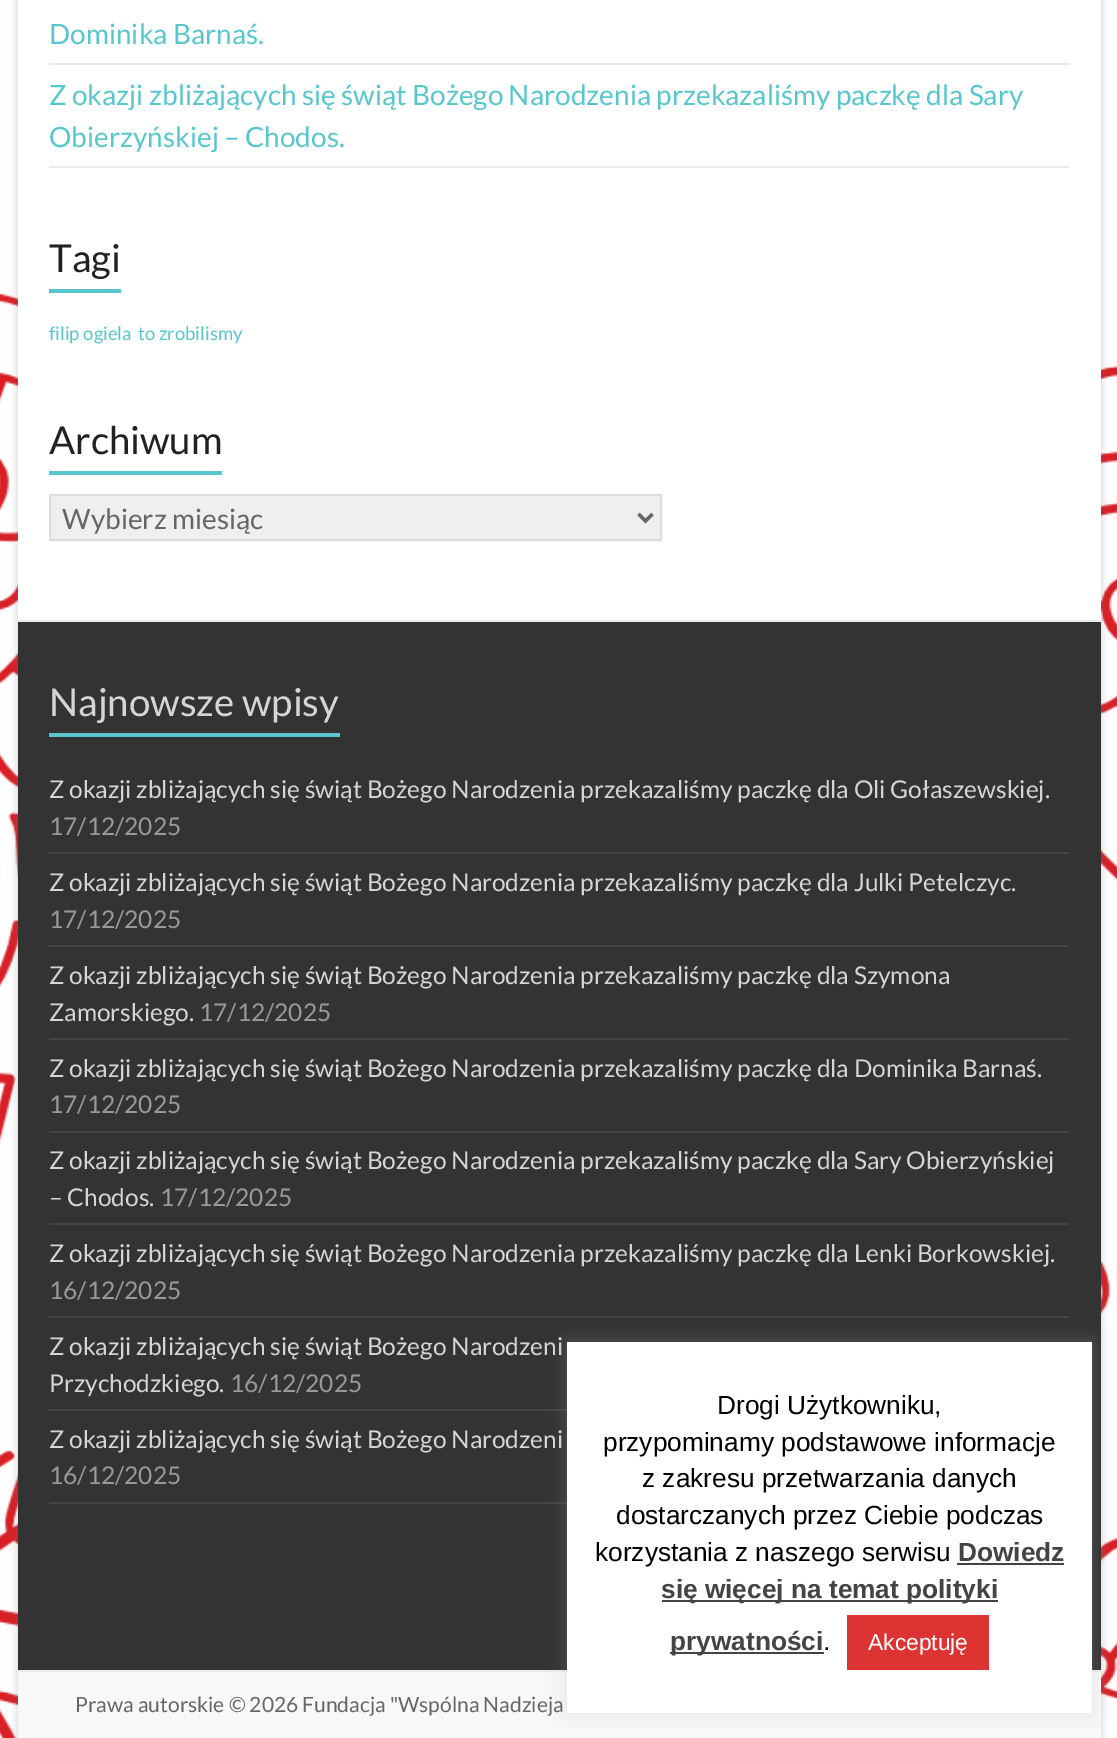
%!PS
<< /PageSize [1117 1738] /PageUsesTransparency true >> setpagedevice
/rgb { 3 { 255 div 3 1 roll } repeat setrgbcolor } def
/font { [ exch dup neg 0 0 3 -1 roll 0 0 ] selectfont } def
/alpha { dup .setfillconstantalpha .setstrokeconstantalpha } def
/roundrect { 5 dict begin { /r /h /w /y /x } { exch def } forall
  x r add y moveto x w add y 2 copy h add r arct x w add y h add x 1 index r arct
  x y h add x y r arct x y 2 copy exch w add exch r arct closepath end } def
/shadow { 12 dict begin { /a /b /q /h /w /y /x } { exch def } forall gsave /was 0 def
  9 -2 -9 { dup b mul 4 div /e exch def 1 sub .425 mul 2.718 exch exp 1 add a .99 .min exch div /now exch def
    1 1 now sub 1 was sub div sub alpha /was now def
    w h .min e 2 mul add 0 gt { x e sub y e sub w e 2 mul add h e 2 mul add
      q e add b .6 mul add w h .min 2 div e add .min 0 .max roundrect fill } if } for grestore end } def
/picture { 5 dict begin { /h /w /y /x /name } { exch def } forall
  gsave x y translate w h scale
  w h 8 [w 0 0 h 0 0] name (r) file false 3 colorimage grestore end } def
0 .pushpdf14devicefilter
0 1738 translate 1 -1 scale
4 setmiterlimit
255 255 255 rgb
0 0 1117 1738 rectfill
(img/1.rgb) 0 0 1117 1738 picture
100 100 100 rgb
18 -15 1083 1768 0 5 0.3 shadow
[
  [18 0 1083 620 255 255 255]
  [49 63 1020 2 234 234 234]
  [49 166 1020 2 234 234 234]
  [49 289 72 4 88 199 205]
  [49 471 173 4 88 199 205]
] { aload pop rgb rectfill } forall
239 239 239 rgb
50 495 moveto 661 495 lineto 661 540 lineto 50 540 lineto closepath gsave fill grestore
221 221 221 rgb
2 setlinewidth
stroke
102 102 102 rgb
3.5 setlinewidth
638.5 514 moveto 645.5 521 lineto 652.5 514 lineto stroke
[
  [18 622 1083 1048 51 51 51]
  [18 620 1083 2 234 234 234]
  [49 733 291 4 88 199 205]
  [49 852 1020 2 68 68 68]
  [49 945 1020 2 68 68 68]
  [49 1038 1020 2 68 68 68]
  [49 1131 1020 2 68 68 68]
  [49 1223 1020 2 68 68 68]
  [49 1316 1020 2 68 68 68]
  [49 1409 518 2 68 68 68]
  [49 1502 518 2 68 68 68]
  [18 1672 1083 66 248 248 248]
  [18 1670 1083 2 234 234 234]
] { aload pop rgb rectfill } forall
172 171 171 rgb
567 1341 525 371 0 9 0.3 shadow
[
  [567 1342 525 371 255 255 255]
  [957 1563 107 2 68 68 68]
  [662 1600 336 2 68 68 68]
  [670 1652 154 2 68 68 68]
  [847 1615 142 55 221 51 51]
] { aload pop rgb rectfill } forall
/Lato-Regular 28 font
88 199 205 rgb
[
  [(Dominika Barnaś.) 49 44]
  [(Z okazji zbliżających się świąt Bożego Narodzenia przekazaliśmy paczkę dla Sary) 49 105]
  [(Obierzyńskiej – Chodos.) 49 147]
] { aload pop moveto show } forall
/Lato-Regular 38.5 font
34 34 34 rgb
49 272 moveto (Tagi) show
/Lato-Regular 18.5 font
88 199 205 rgb
49 340 moveto (filip ogiela) show
138 340 moveto (to zrobilismy) show
/Lato-Regular 38.5 font
34 34 34 rgb
49 454 moveto (Archiwum) show
/Lato-Regular 28 font
102 102 102 rgb
62 529 moveto (Wybierz miesiąc) show
/Lato-Regular 38.5 font
213 213 213 rgb
49 716 moveto (Najnowsze wpisy) show
/Lato-Regular 24.5 font
49 798 moveto (Z okazji zbliżających się świąt Bożego Narodzenia przekazaliśmy paczkę dla Oli Gołaszewskiej.) show
153 153 153 rgb
49 835 moveto (17/12/2025) show
213 213 213 rgb
49 891 moveto (Z okazji zbliżających się świąt Bożego Narodzenia przekazaliśmy paczkę dla Julki Petelczyc.) show
153 153 153 rgb
49 928 moveto (17/12/2025) show
213 213 213 rgb
49 984 moveto (Z okazji zbliżających się świąt Bożego Narodzenia przekazaliśmy paczkę dla Szymona) show
49 1021 moveto (Zamorskiego.) show
153 153 153 rgb
199 1021 moveto (17/12/2025) show
213 213 213 rgb
49 1077 moveto (Z okazji zbliżających się świąt Bożego Narodzenia przekazaliśmy paczkę dla Dominika Barnaś.) show
153 153 153 rgb
49 1113 moveto (17/12/2025) show
213 213 213 rgb
49 1169 moveto (Z okazji zbliżających się świąt Bożego Narodzenia przekazaliśmy paczkę dla Sary Obierzyńskiej) show
49 1206 moveto (– Chodos.) show
153 153 153 rgb
160 1206 moveto (17/12/2025) show
213 213 213 rgb
49 1262 moveto (Z okazji zbliżających się świąt Bożego Narodzenia przekazaliśmy paczkę dla Lenki Borkowskiej.) show
153 153 153 rgb
49 1299 moveto (16/12/2025) show
213 213 213 rgb
49 1355 moveto (Z okazji zbliżających się świąt Bożego Narodzeni) show
49 1392 moveto (Przychodzkiego.) show
153 153 153 rgb
230 1392 moveto (16/12/2025) show
213 213 213 rgb
49 1448 moveto (Z okazji zbliżających się świąt Bożego Narodzeni) show
153 153 153 rgb
49 1484 moveto (16/12/2025) show
/Lato-Regular 21 font
102 102 102 rgb
75 1712 moveto (Prawa autorskie © 2026 Fundacja "Wspólna Nadzieja) show
/LiberationSans-Regular 26.25 font
0 0 0 rgb
[
  [(Drogi Użytkowniku,) 717 1414]
  [(przypominamy podstawowe informacje) 603 1451]
  [(z zakresu przetwarzania danych) 642 1487]
  [(dostarczanych przez Ciebie podczas) 616 1524]
  [(korzystania z naszego serwisu) 595 1561]
] { aload pop moveto show } forall
/LiberationSans-Bold 26.25 font
68 68 68 rgb
[
  [(Dowiedz) 958 1561]
  [(się więcej na temat polityki) 661 1598]
  [(prywatności) 670 1650]
] { aload pop moveto show } forall
/LiberationSans-Regular 26.25 font
0 0 0 rgb
823 1650 moveto (.) show
/LiberationSans-Regular 22.75 font
255 255 255 rgb
868 1650 moveto (Akceptuję) show
.poppdf14devicefilter showpage
